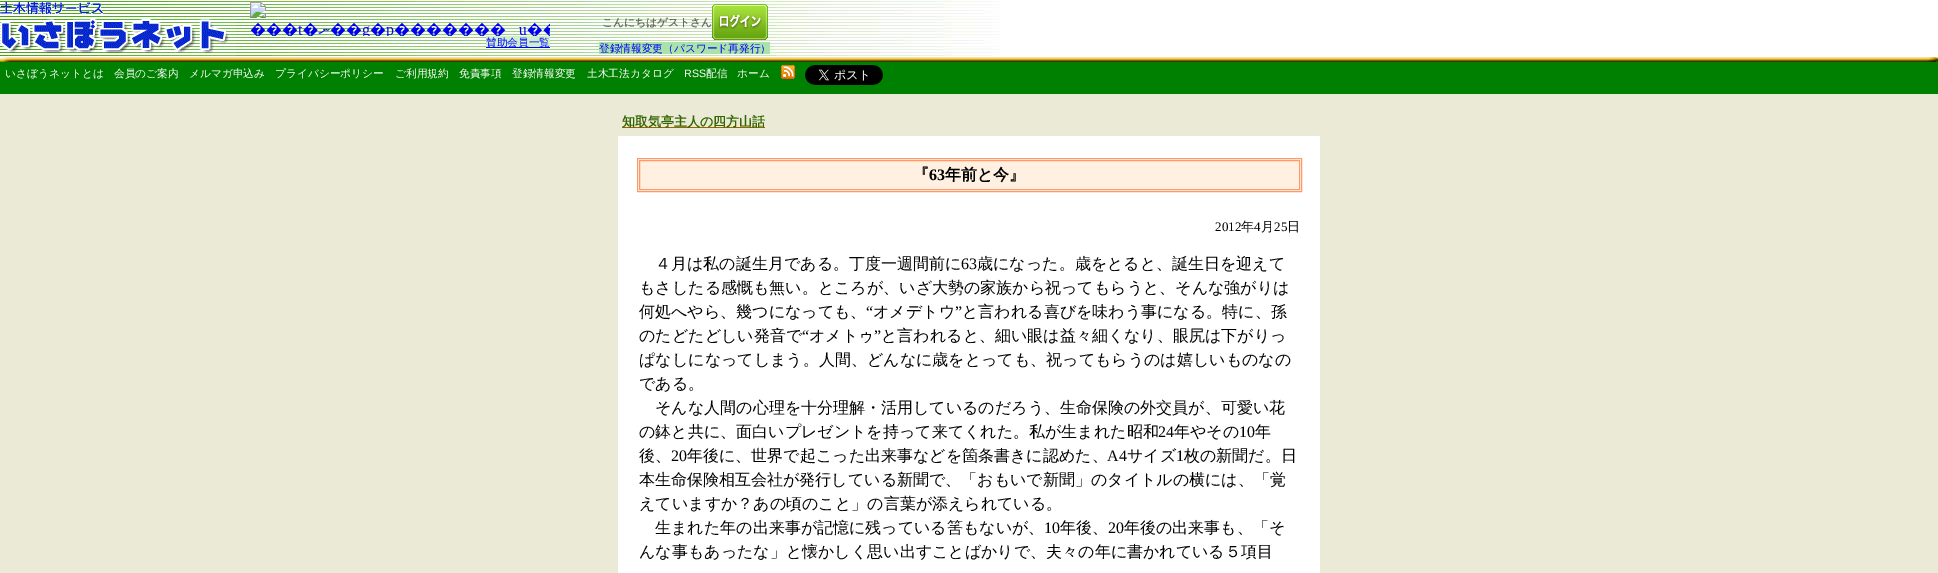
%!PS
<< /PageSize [1938 573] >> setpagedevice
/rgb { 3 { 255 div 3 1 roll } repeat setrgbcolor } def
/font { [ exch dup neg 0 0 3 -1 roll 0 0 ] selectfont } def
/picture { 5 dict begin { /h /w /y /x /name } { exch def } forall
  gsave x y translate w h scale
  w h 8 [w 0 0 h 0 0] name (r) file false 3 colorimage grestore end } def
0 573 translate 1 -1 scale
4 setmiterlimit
234 234 215 rgb
0 0 1938 573 rectfill
255 255 255 rgb
1000 0 938 57 rectfill
(img/1.rgb) 0 0 1000 57 picture
(img/2.rgb) 0 2 103 13 picture
(img/3.rgb) 0 18 236 38 picture
(img/4.rgb) 250 2 300 34 picture
207 239 207 rgb
486 36 64 11 rectfill
0 0 255 rgb
486 47 64 1 rectfill
(img/5.rgb) 712 4 56 36 picture
170 227 170 rgb
599 42 171 12 rectfill
(img/6.rgb) 0 57 1938 5 picture
0 128 0 rgb
0 62 1938 32 rectfill
(img/7.rgb) 781 65 14 14 picture
(img/8.rgb) 805 65 78 20 picture
153 102 0 rgb
622 127 143 1 rectfill
255 255 255 rgb
618 136 702 437 rectfill
255 153 102 rgb
637.5 158.5 664 33 rectstroke
255 240 225 rgb
639.5 160.5 moveto 1299.5 160.5 lineto 1299.5 189.5 lineto 639.5 189.5 lineto closepath gsave fill grestore
255 153 102 rgb
stroke
/WenQuanYiZenHei-Medium 10.7 font
0 0 255 rgb
486 46 moveto (賛助会員一覧) show
/WenQuanYiZenHei-Bold 10.7 font
102 102 102 rgb
602 26 moveto (こんにちはゲストさん) show
/WenQuanYiZenHei-Medium 10.7 font
0 0 255 rgb
599 52 moveto (登録情報変更（パスワード再発行）) show
255 255 255 rgb
[
  [(いさぼうネットとは) 5 77]
  [(会員のご案内) 114 77]
  [(メルマガ申込み) 189 77]
  [(プライバシーポリシー) 275 77]
  [(ご利用規約) 395 77]
  [(免責事項) 459 77]
  [(登録情報変更) 512 77]
  [(土木工法カタログ) 587 77]
] { aload pop moveto show } forall
/LiberationSans-Regular 10.7 font
684 77 moveto (RSS) show
/WenQuanYiZenHei-Medium 10.7 font
706 77 moveto (配信) show
737 77 moveto (ホーム) show
/WenQuanYiZenHei-Bold 13 font
51 102 0 rgb
622 126 moveto (知取気亭主人の四方山話) show
/WenQuanYiZenHei-Bold 16 font
0 0 0 rgb
913 180 moveto (『) show
/LiberationSerif-Bold 16 font
929 180 moveto (63) show
/WenQuanYiZenHei-Bold 16 font
945 180 moveto (年前と今』) show
/LiberationSerif-Regular 13 font
1215 231 moveto (2012) show
/WenQuanYiZenHei-Medium 13 font
1241 231 moveto (年) show
/LiberationSerif-Regular 13 font
1254 231 moveto (4) show
/WenQuanYiZenHei-Medium 13 font
1261 231 moveto (月) show
/LiberationSerif-Regular 13 font
1274 231 moveto (25) show
/WenQuanYiZenHei-Medium 13 font
1287 231 moveto (日) show
/WenQuanYiZenHei-Medium 16 font
655 269 moveto (４月は私の誕生月である。丁度一週間前に) show
/LiberationSerif-Regular 16 font
961 269 moveto (63) show
/WenQuanYiZenHei-Medium 16 font
[
  [(歳になった。歳をとると、誕生日を迎えて) 977 269]
  [(もさしたる感慨も無い。ところが、いざ大勢の家族から祝ってもらうと、そんな強がりは) 639 293]
  [(何処へやら、幾つになっても、) 639 317]
] { aload pop moveto show } forall
/LiberationSerif-Regular 16 font
866 317 moveto (“) show
/WenQuanYiZenHei-Medium 16 font
873 317 moveto (オメデトウ) show
/LiberationSerif-Regular 16 font
955 317 moveto (”) show
/WenQuanYiZenHei-Medium 16 font
962 317 moveto (と言われる喜びを味わう事になる。特に、孫) show
639 341 moveto (のたどたどしい発音で) show
/LiberationSerif-Regular 16 font
802 341 moveto (“) show
/WenQuanYiZenHei-Medium 16 font
809 341 moveto (オメトゥ) show
/LiberationSerif-Regular 16 font
874 341 moveto (”) show
/WenQuanYiZenHei-Medium 16 font
[
  [(と言われると、細い眼は益々細くなり、眼尻は下がりっ) 881 341]
  [(ぱなしになってしまう。人間、どんなに歳をとっても、祝ってもらうのは嬉しいものなの) 639 365]
  [(である。) 639 389]
  [(そんな人間の心理を十分理解・活用しているのだろう、生命保険の外交員が、可愛い花) 655 413]
  [(の鉢と共に、面白いプレゼントを持って来てくれた。私が生まれた昭和) 639 437]
] { aload pop moveto show } forall
/LiberationSerif-Regular 16 font
1158 437 moveto (24) show
/WenQuanYiZenHei-Medium 16 font
1174 437 moveto (年やその) show
/LiberationSerif-Regular 16 font
1239 437 moveto (10) show
/WenQuanYiZenHei-Medium 16 font
1255 437 moveto (年) show
639 461 moveto (後、) show
/LiberationSerif-Regular 16 font
671 461 moveto (20) show
/WenQuanYiZenHei-Medium 16 font
687 461 moveto (年後に、世界で起こった出来事などを箇条書きに認めた、) show
/LiberationSerif-Regular 16 font
1107 461 moveto (A4) show
/WenQuanYiZenHei-Medium 16 font
1127 461 moveto (サイズ) show
/LiberationSerif-Regular 16 font
1176 461 moveto (1) show
/WenQuanYiZenHei-Medium 16 font
[
  [(枚の新聞だ。日) 1184 461]
  [(本生命保険相互会社が発行している新聞で、「おもいで新聞」のタイトルの横には、「覚) 639 485]
  [(えていますか？あの頃のこと」の言葉が添えられている。) 639 509]
  [(生まれた年の出来事が記憶に残っている筈もないが、) 655 533]
] { aload pop moveto show } forall
/LiberationSerif-Regular 16 font
1044 533 moveto (10) show
/WenQuanYiZenHei-Medium 16 font
1060 533 moveto (年後、) show
/LiberationSerif-Regular 16 font
1108 533 moveto (20) show
/WenQuanYiZenHei-Medium 16 font
1124 533 moveto (年後の出来事も、「そ) show
639 557 moveto (んな事もあったな」と懐かしく思い出すことばかりで、夫々の年に書かれている５項目) show
showpage
